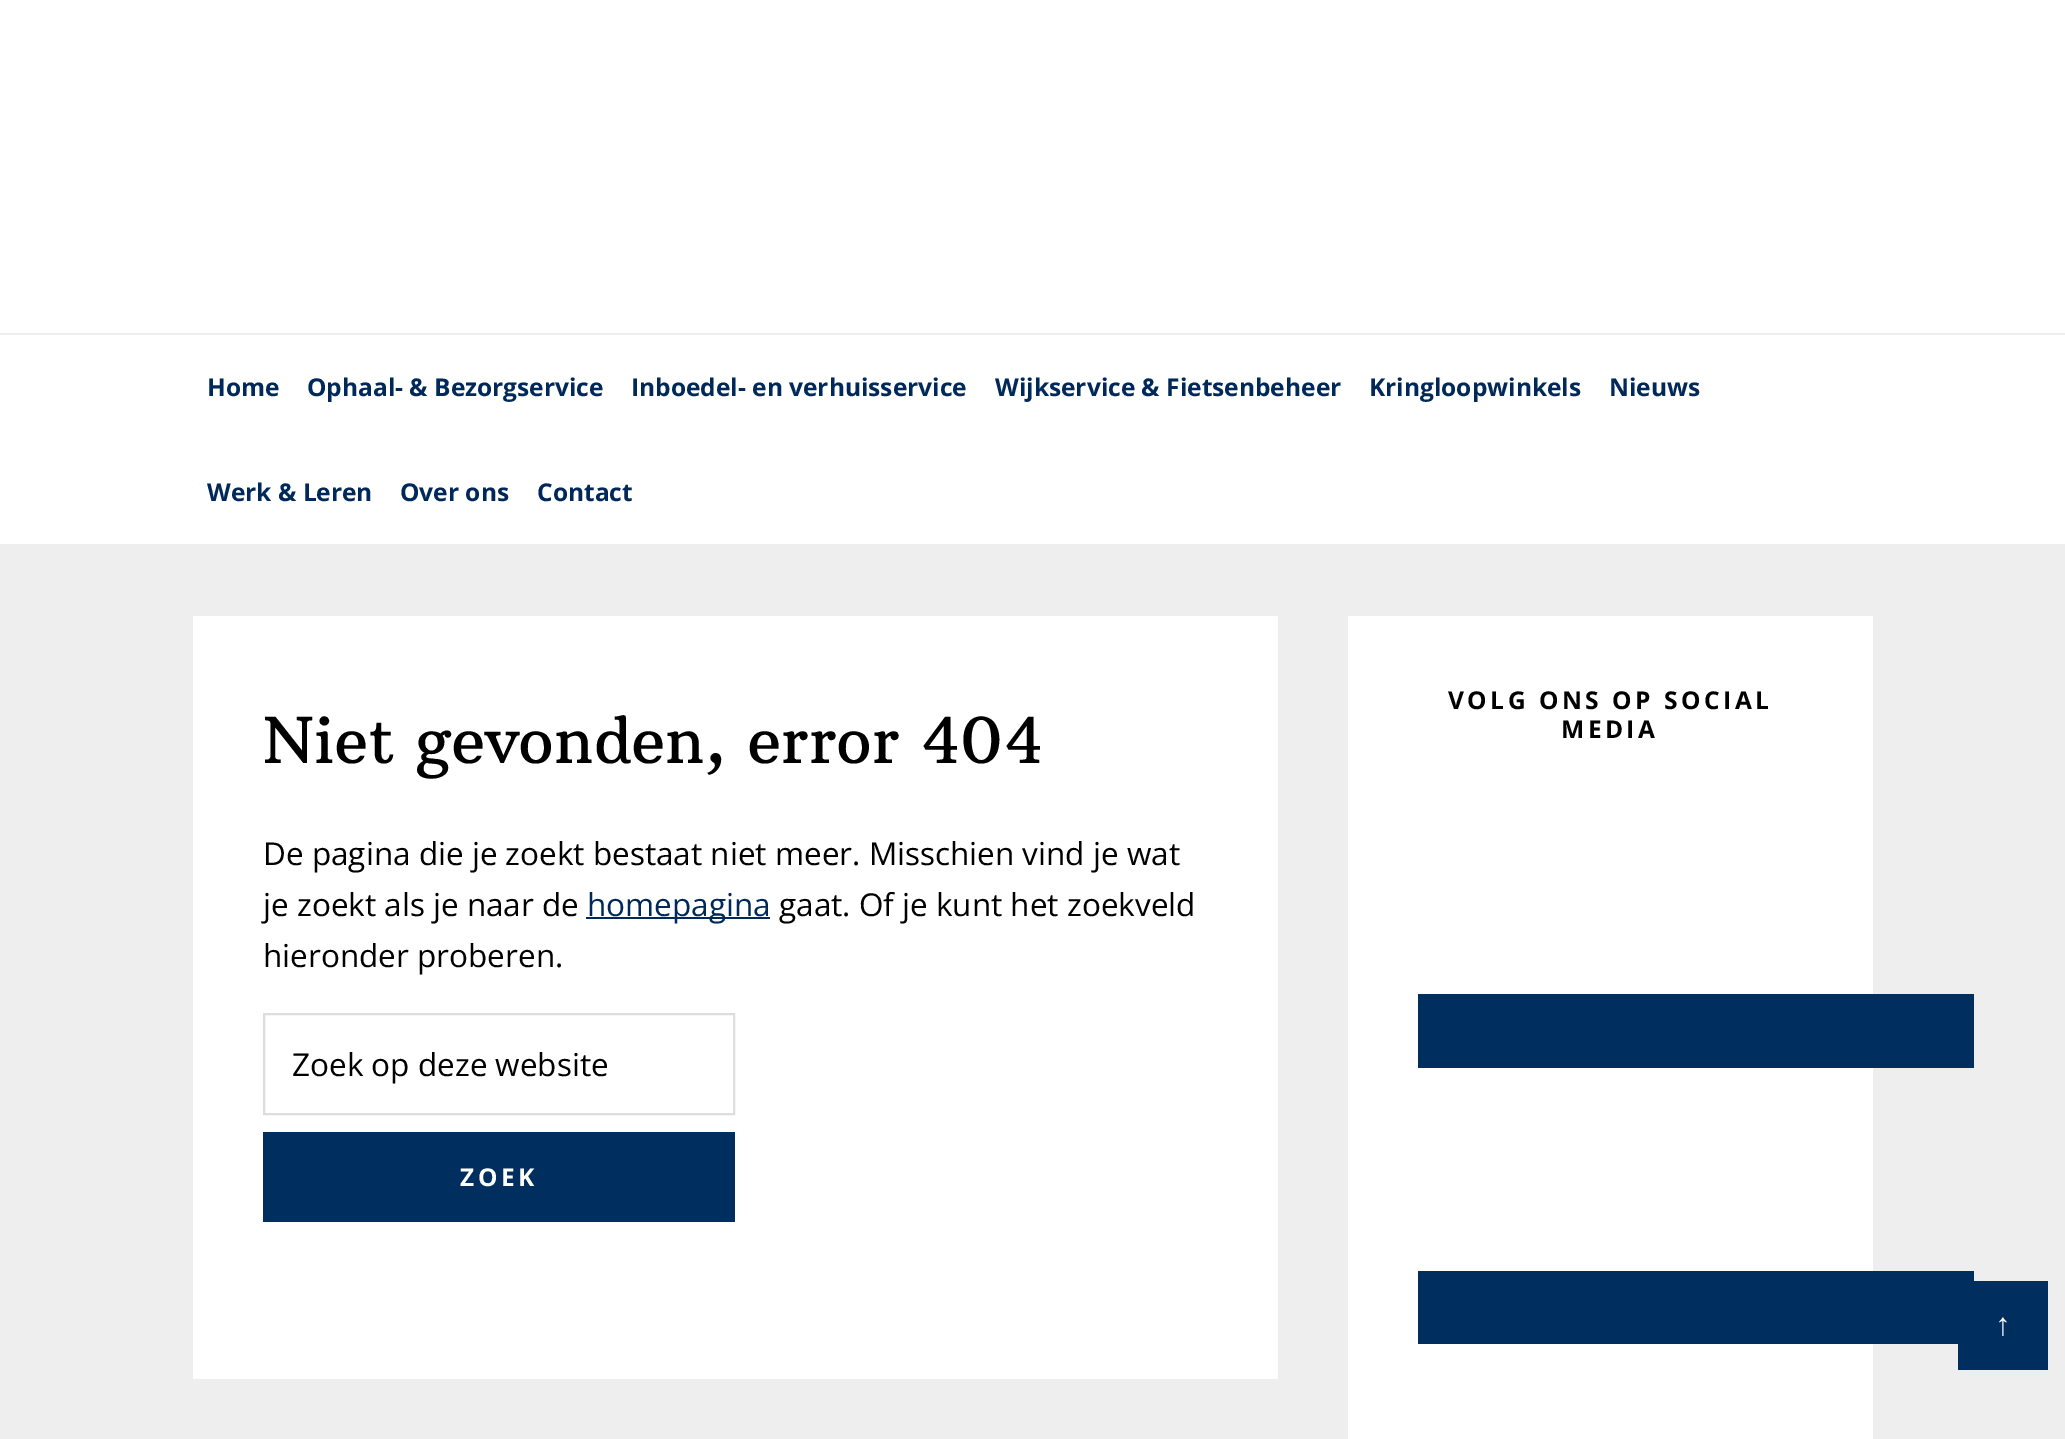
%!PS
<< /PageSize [2065 1439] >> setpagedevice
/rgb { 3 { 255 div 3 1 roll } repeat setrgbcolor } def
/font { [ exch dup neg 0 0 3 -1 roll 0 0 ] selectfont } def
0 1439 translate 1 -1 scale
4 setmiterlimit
238 238 238 rgb
0 0 2065 1439 rectfill
[
  [0 0 2065 333 255 255 255]
  [0 335 2065 209 255 255 255]
  [193 616 1085 763 255 255 255]
  [586 917 184 2 0 41 89]
] { aload pop rgb rectfill } forall
221 221 221 rgb
2 setlinewidth
264 1014 470 100 rectstroke
[
  [263 1132 472 90 0 46 94]
  [1348 616 525 823 255 255 255]
  [1418 994 556 74 0 46 94]
  [1418 1271 556 73 0 46 94]
  [1958 1281 90 89 0 46 94]
] { aload pop rgb rectfill } forall
/OpenSans-Bold 24.5 font
0 41 89 rgb
[
  [(Home) 207 396]
  [(Ophaal- & Bezorgservice) 307 396]
  [(Inboedel- en verhuisservice) 631 396]
  [(Wijkservice & Fietsenbeheer) 995 396]
  [(Kringloopwinkels) 1369 396]
  [(Nieuws) 1609 396]
  [(Werk & Leren) 207 501]
  [(Over ons) 400 501]
  [(Contact) 537 501]
] { aload pop moveto show } forall
/ArbutusSlab-Regular 63 font
0 0 0 rgb
263 763 moveto (Niet gevonden, error 404) show
/OpenSans-Regular 31.5 font
263 865 moveto (De pagina die je zoekt bestaat niet meer. Misschien vind je wat) show
263 916 moveto (je zoekt als je naar de) show
0 41 89 rgb
587 916 moveto (homepagina) show
0 0 0 rgb
[
  [(gaat. Of je kunt het zoekveld) 779 916]
  [(hieronder proberen.) 263 967]
  [(Zoek op deze website) 292 1076]
] { aload pop moveto show } forall
/OpenSans-Bold 24.5 font
255 255 255 rgb
460 1186 moveto 3.5 0 (ZOEK) ashow
0 0 0 rgb
1448 709 moveto 3.5 0 (VOLG ONS OP SOCIAL) ashow
1561 738 moveto 3.5 0 (MEDIA) ashow
/LiberationSans-Regular 31.5 font
255 255 255 rgb
1995 1335 moveto (↑) show
showpage
